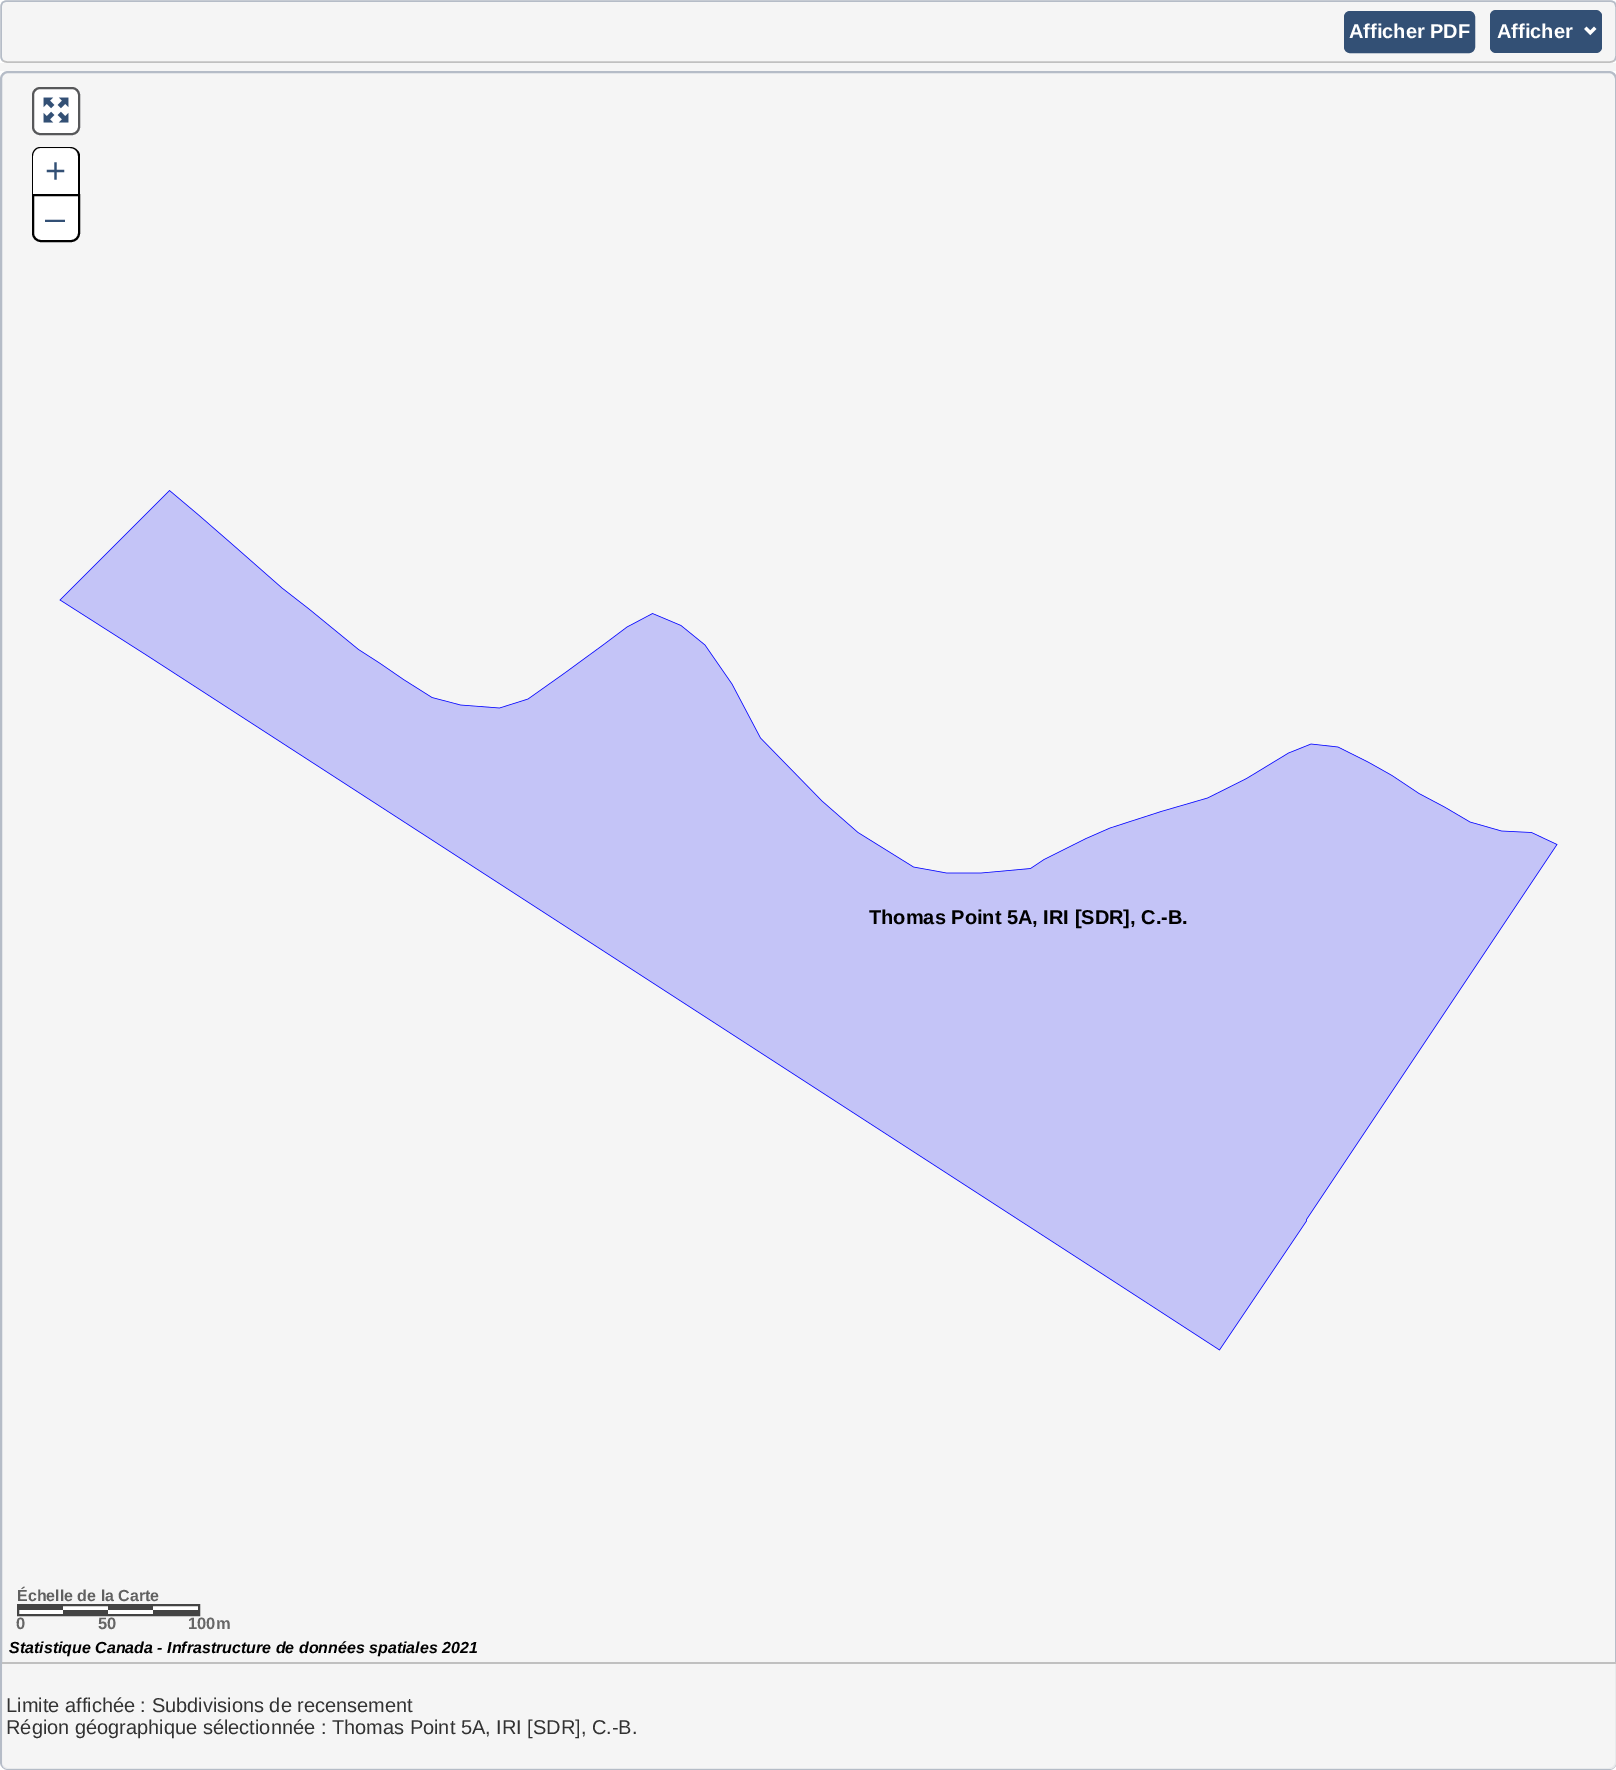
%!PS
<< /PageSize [1616 1770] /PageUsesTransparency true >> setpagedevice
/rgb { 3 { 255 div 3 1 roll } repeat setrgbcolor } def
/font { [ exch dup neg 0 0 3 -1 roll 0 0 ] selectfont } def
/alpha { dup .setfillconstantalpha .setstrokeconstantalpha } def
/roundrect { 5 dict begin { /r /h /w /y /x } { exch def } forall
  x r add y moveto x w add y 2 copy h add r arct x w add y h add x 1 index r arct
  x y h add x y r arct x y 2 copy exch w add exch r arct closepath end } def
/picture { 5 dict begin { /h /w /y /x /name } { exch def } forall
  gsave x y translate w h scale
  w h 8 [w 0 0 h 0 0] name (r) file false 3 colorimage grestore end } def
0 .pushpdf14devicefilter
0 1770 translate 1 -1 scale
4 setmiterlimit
255 255 255 rgb
0 0 1616 1770 rectfill
245 245 245 rgb
0 0 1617 63 8 roundrect fill
192 192 192 rgb
1.5 setlinewidth
1614.5 60.5 moveto 1613 61.5 1611.5 62 1609.5 62 curveto 7.5 62 lineto 5.5 62 4 61.5 2.5 60.5 curveto stroke
181 188 199 rgb
2.5 60.5 moveto 1.5 59 1 57.5 1 55.5 curveto 1 7.5 lineto 1 5.5 1.5 4 2.5 2.5 curveto 4 1.5 5.5 1 7.5 1 curveto 1609.5 1 lineto 1611.5 1 1613 1.5 1614.5 2.5 curveto 1615.5 4 1616 5.5 1616 7.5 curveto 1616 55.5 lineto 1616 57.5 1615.5 59 1614.5 60.5 curveto stroke
51 80 117 rgb
1345 12 129 40 5 roundrect gsave fill grestore
2 setlinewidth
stroke
1490 11 112 42 6 roundrect fill
1496 10 moveto 1596 10 lineto 1599 10 1602 13 1602 16 curveto 1602 46 lineto 1602 50 1599 52 1596 52 curveto 1496 52 lineto 1492 52 1490 50 1490 46 curveto 1490 16 lineto 1490 13 1492 10 1496 10 curveto closepath 1496 12 moveto 1596 12 lineto 1598 12 1600 14 1600 16 curveto 1600 46 lineto 1600 50 1598 52 1596 52 curveto 1496 52 lineto 1493 52 1491 50 1491 46 curveto 1491 16 lineto 1491 14 1493 12 1496 12 curveto closepath eofill
(img/1.rgb) 1584 26 13 10 picture
245 245 245 rgb
0 63 1616 8 rectfill
1 72 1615 1697 7 roundrect gsave fill grestore
181 188 199 rgb
stroke
255 255 255 rgb
33 88 46 46 7 roundrect gsave fill grestore
87 88 90 rgb
stroke
(img/2.rgb) 43 97 26 26 picture
255 255 255 rgb
41 149 moveto 70 149 lineto 74.5 149 78 152.5 78 157 curveto 78 194 lineto 33 194 lineto 33 157 lineto 33 152.5 36.5 149 41 149 curveto closepath fill
0 0 0 rgb
40 147 moveto 70 147 lineto 75 147 80 151 80 156 curveto 80 194 lineto 32 194 lineto 32 156 lineto 32 151 36 147 40 147 curveto closepath 40 148 moveto 70 148 lineto 75 148 78 152 78 156 curveto 78 194 lineto 33 194 lineto 33 156 lineto 33 152 36 148 40 148 curveto closepath eofill
255 255 255 rgb
33 195 moveto 79 195 lineto 79 233 lineto 79 237.5 75.5 241 71 241 curveto 41 241 lineto 36.5 241 33 237.5 33 233 curveto closepath gsave fill grestore
0 0 0 rgb
stroke
(img/3.rgb) 59 490 1499 861 picture
255 255 255 rgb
18 1605 moveto 199 1605 lineto 199 1615 lineto 18 1615 lineto closepath gsave fill grestore
68 68 68 rgb
stroke
[
  [18 1606 45 4 68 68 68]
  [108 1606 45 4 68 68 68]
  [63 1610 45 4 68 68 68]
  [153 1610 45 4 68 68 68]
] { aload pop rgb rectfill } forall
0.8 alpha
245 245 245 rgb
2 1664 moveto 1616 1664 lineto 1616 1763 lineto 1616 1766.5 1613.5 1769 1610 1769 curveto 8 1769 lineto 4.5 1769 2 1766.5 2 1763 curveto closepath fill
1 alpha
192 192 192 rgb
2 1662 1614 2 rectfill
/LiberationSans-Bold 20 font
255 255 255 rgb
1349 38 moveto (Afficher PDF) show
1497 38 moveto (Afficher) show
/LiberationSans-Regular 36 font
51 80 117 rgb
45 183 moveto (+) show
45 230 moveto (–) show
/LiberationSans-Bold 20 font
0 0 0 rgb
869 924 moveto (Thomas Point 5A, IRI [SDR], C.-B.) show
/LiberationSans-Bold 16 font
96 96 96 rgb
17 1601 moveto (Échelle de la Carte) show
/LiberationSans-Bold 16.5 font
102 102 102 rgb
[
  [(0) 16 1629]
  [(50) 98 1629]
  [(100m) 188 1629]
] { aload pop moveto show } forall
/LiberationSans-BoldItalic 16 font
0 0 0 rgb
9 1653 moveto (Statistique Canada - Infrastructure de données spatiales 2021) show
/LiberationSans-Regular 20 font
50 50 50 rgb
6 1712 moveto (Limite affichée : Subdivisions de recensement) show
6 1734 moveto (Région géographique sélectionnée : Thomas Point 5A, IRI [SDR], C.-B.) show
.poppdf14devicefilter showpage
